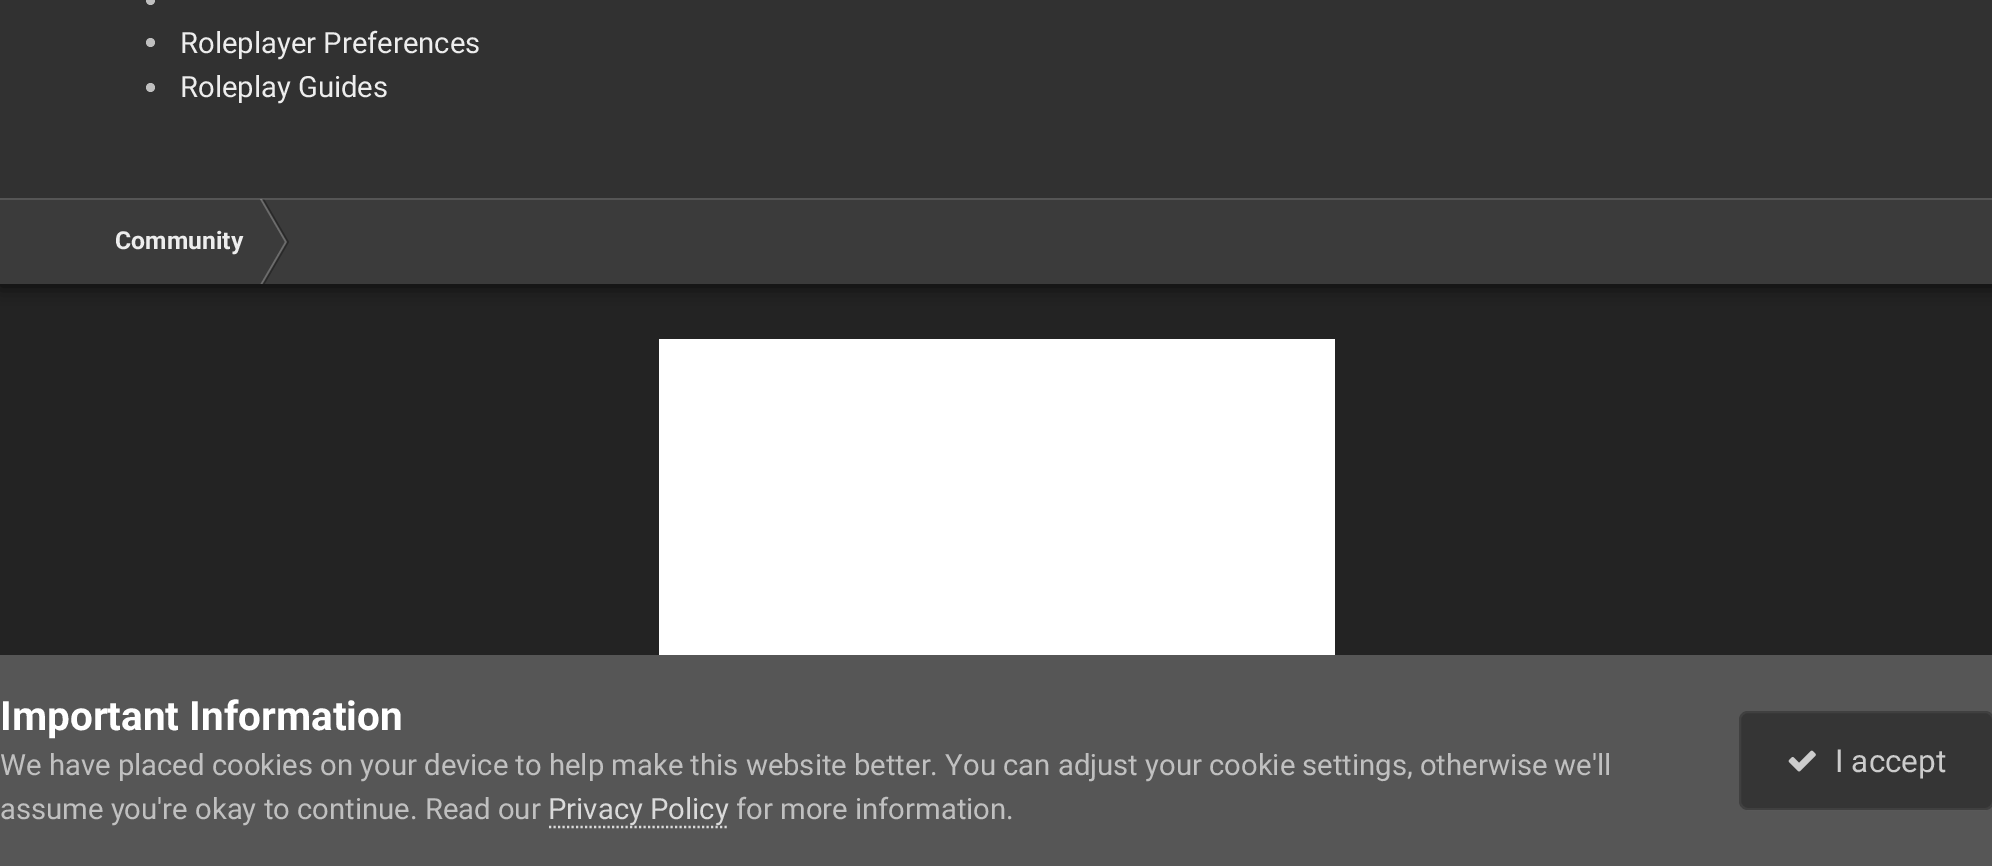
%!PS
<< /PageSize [1992 866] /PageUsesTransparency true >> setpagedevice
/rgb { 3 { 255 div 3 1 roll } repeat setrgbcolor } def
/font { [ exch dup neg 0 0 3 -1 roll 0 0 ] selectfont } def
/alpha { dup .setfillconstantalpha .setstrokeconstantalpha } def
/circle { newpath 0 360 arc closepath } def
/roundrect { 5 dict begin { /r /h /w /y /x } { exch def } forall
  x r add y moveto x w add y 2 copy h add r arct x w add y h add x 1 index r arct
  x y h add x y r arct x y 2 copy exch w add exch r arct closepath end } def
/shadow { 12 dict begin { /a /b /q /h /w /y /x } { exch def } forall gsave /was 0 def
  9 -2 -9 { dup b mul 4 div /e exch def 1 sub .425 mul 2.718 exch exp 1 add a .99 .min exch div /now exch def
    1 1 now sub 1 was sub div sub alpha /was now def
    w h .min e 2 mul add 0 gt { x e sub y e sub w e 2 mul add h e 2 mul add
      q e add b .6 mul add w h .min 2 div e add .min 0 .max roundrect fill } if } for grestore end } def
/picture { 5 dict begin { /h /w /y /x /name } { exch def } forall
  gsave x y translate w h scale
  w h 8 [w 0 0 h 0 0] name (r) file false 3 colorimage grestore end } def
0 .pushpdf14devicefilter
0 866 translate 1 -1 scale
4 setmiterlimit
35 35 35 rgb
0 0 1992 866 rectfill
0 0 0 rgb
0 -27 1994 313 0 9 0.7 shadow
49 49 49 rgb
0 0 1992 198 rectfill
191 191 191 rgb
150.5 0.5 4.5 circle fill
150.5 42.5 4.5 circle fill
150.5 87.5 4.5 circle fill
59 59 59 rgb
0 198 1992 86 rectfill
108 108 108 rgb
260 199 moveto 262 199 lineto 287 242 lineto 285 242 lineto closepath fill
0.3 alpha
0 0 0 rgb
262 199 moveto 264 199 lineto 289 242 lineto 287 242 lineto closepath fill
0.2 alpha
191 191 191 rgb
0 198 1992 2 rectfill
gsave
0 198 1944 86 rectclip
1 alpha
108 108 108 rgb
260 285 moveto 262 285 lineto 287 242 lineto 285 242 lineto closepath fill
0.3 alpha
0 0 0 rgb
262 285 moveto 264 285 lineto 289 242 lineto 287 242 lineto closepath fill
grestore
1 alpha
255 255 255 rgb
659 339 676 316 rectfill
86 86 86 rgb
0 655 1992 211 rectfill
218 218 218 rgb
2.2 setlinewidth
[2.25 2.25] 0 setdash
549 827 moveto 729 827 lineto stroke
53 53 53 rgb
1739 711 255 99 9 roundrect fill
0.07 alpha
204 204 204 rgb
2 setlinewidth
[] 0 setdash
1740 712 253 97 8 roundrect stroke
1 alpha
(img/1.rgb) 1788 750 28 22 picture
/Roboto-Regular 29.25 font
237 237 237 rgb
180 53 moveto (Roleplayer Preferences) show
180 97 moveto (Roleplay Guides) show
/Roboto-Bold 24.75 font
115 249 moveto (Community) show
/Roboto-Bold 40.5 font
255 255 255 rgb
0 730 moveto (Important Information) show
/Roboto-Regular 29.25 font
192 192 192 rgb
0 775 moveto (We have placed cookies on your device to help make this website better. You can adjust your cookie settings, otherwise we'll) show
0 819 moveto (assume you're okay to continue. Read our) show
218 218 218 rgb
548 819 moveto (Privacy Policy) show
192 192 192 rgb
736 819 moveto (for more information.) show
/Roboto-Regular 31.5 font
204 204 204 rgb
1835 772 moveto (I accept) show
.poppdf14devicefilter showpage
